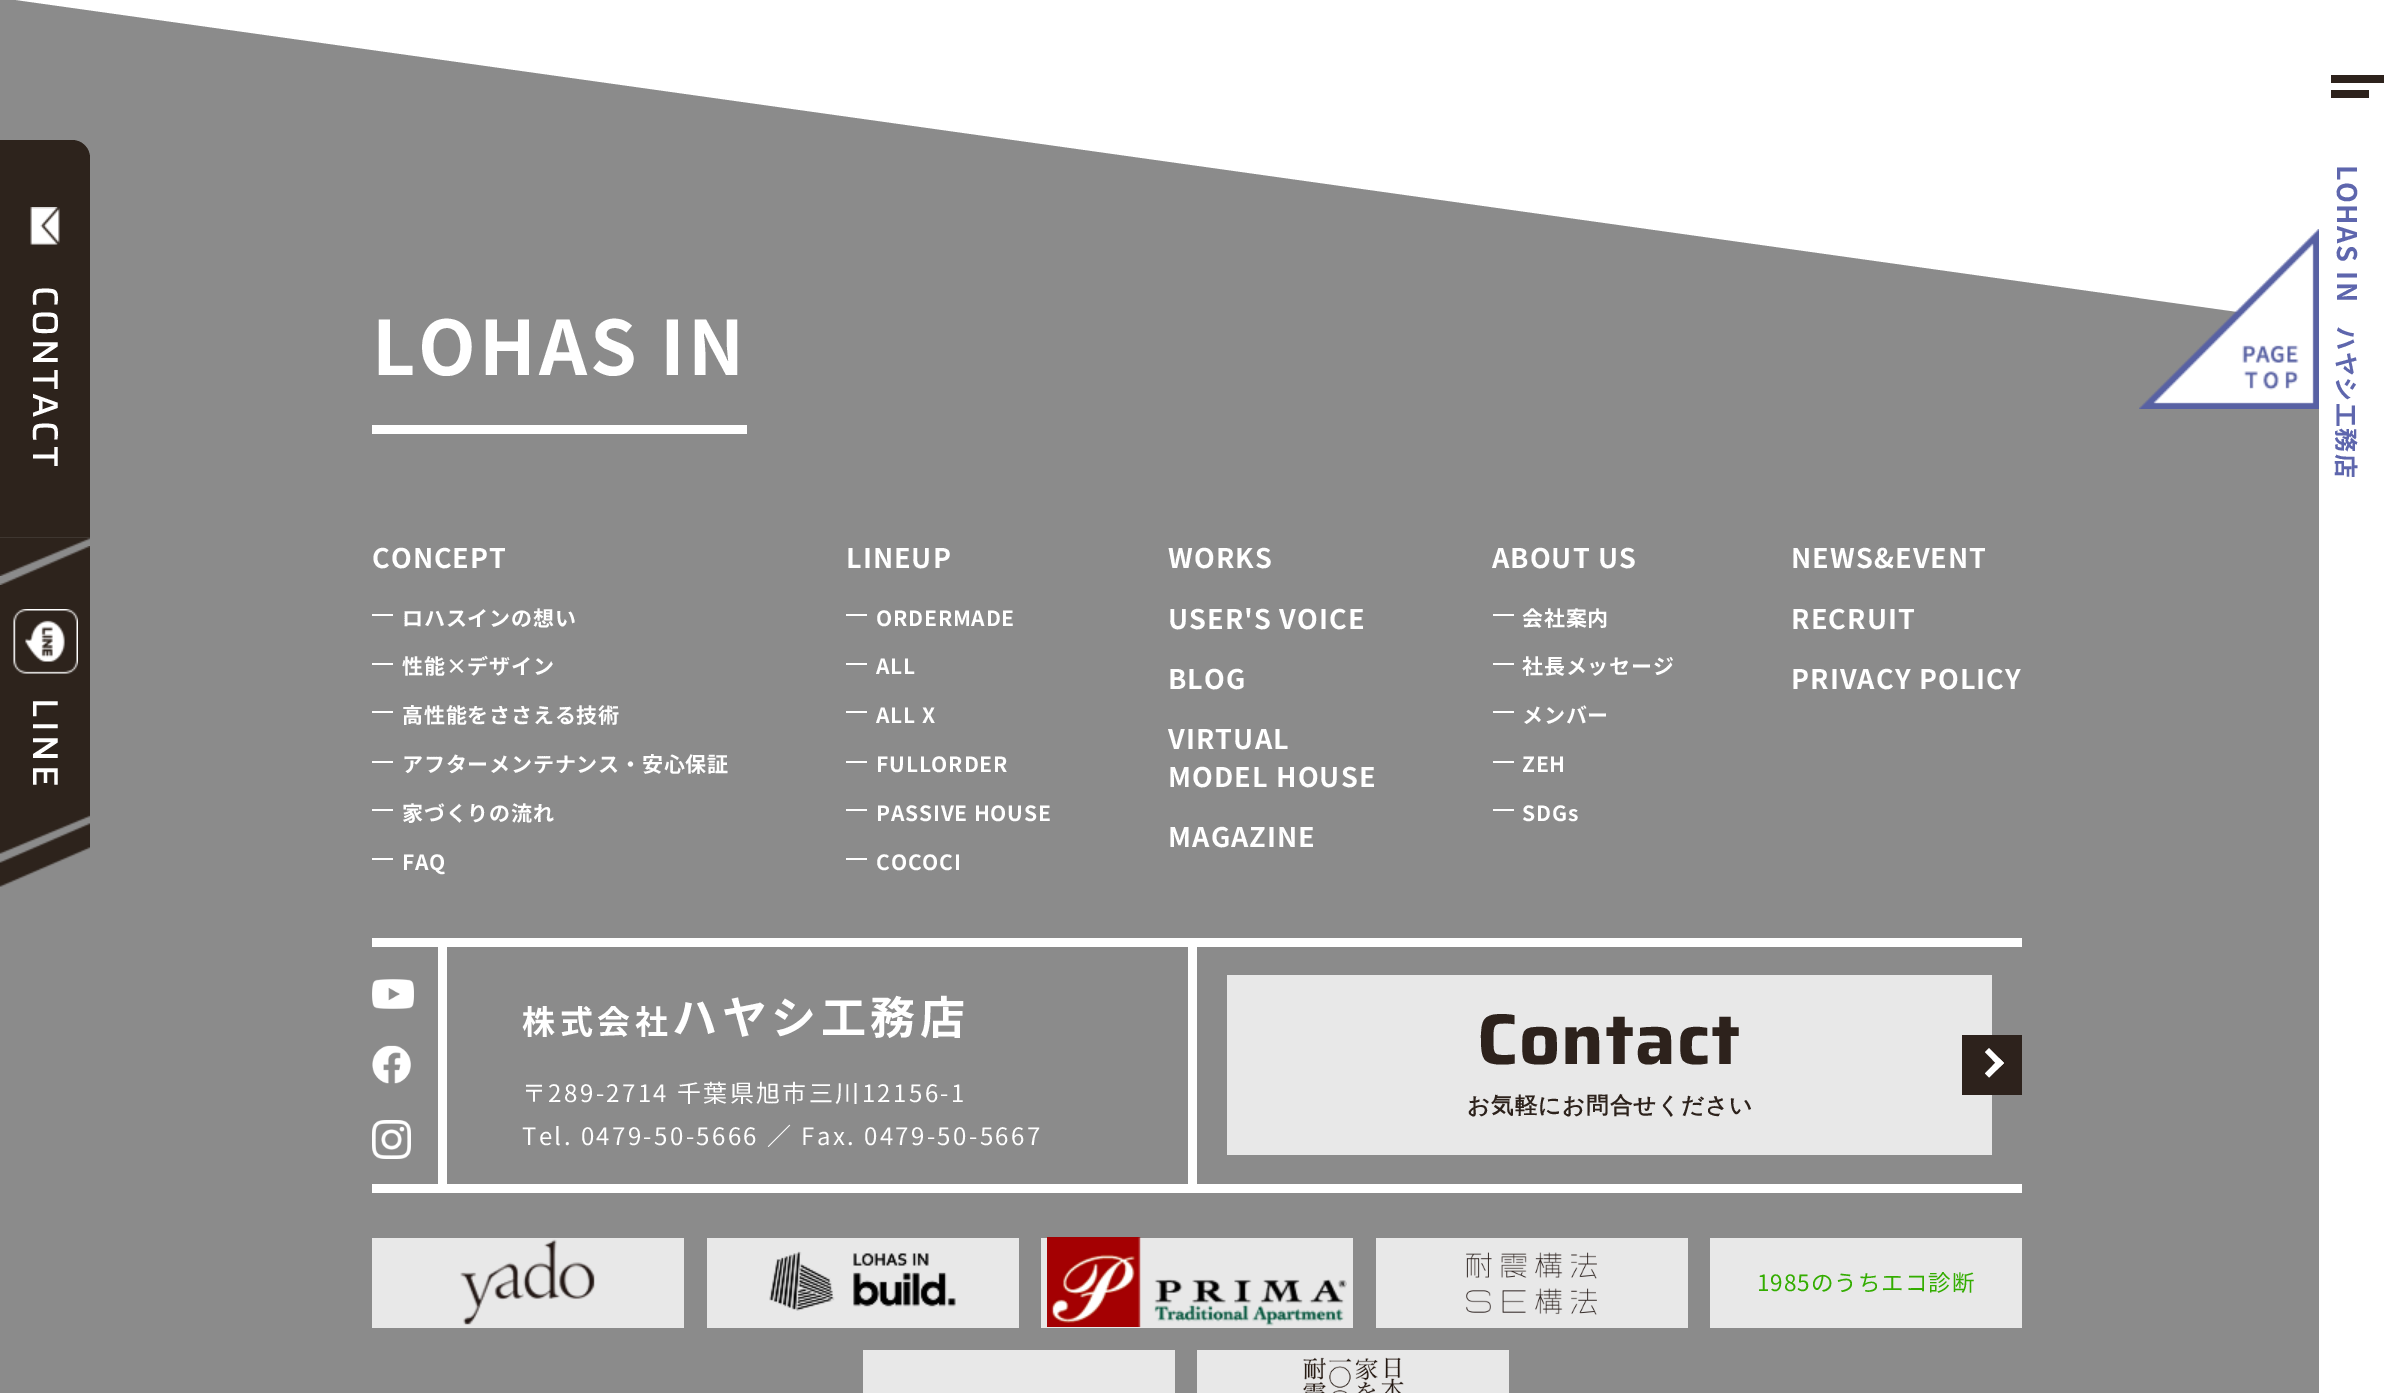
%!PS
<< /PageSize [2394 1393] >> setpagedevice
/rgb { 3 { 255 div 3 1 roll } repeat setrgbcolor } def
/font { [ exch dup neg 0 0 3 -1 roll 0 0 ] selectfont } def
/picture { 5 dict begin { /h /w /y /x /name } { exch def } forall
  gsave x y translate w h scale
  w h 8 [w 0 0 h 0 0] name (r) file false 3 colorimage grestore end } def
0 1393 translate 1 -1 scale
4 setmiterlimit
255 255 255 rgb
0 0 2394 1393 rectfill
139 139 139 rgb
0 1037 2319 356 rectfill
0 -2 moveto 2394 334 lineto 2394 1374 lineto 0 1037 lineto closepath fill
45 35 28 rgb
0 140 moveto 72 140 lineto 82 140 90 148 90 158 curveto 90 537 lineto 0 537 lineto closepath fill
(img/1.rgb) 30 207 30 38 picture
(img/2.rgb) 0 537 90 39 picture
0 585 90 230 rectfill
(img/3.rgb) 0 546 90 39 picture
(img/4.rgb) 13 609 65 65 picture
(img/5.rgb) 0 815 90 72 picture
[
  [372 425 375 9 255 255 255]
  [372 614 21 2 255 255 255]
  [372 663 21 2 255 255 255]
  [372 711 21 2 255 255 255]
  [372 761 21 2 255 255 255]
  [372 809 21 2 255 255 255]
  [372 858 21 2 255 255 255]
  [846 614 21 2 255 255 255]
  [846 663 21 2 255 255 255]
  [846 711 21 2 255 255 255]
  [846 761 21 2 255 255 255]
  [846 809 21 2 255 255 255]
  [846 858 21 2 255 255 255]
  [1493 614 21 2 255 255 255]
  [1493 663 21 2 255 255 255]
  [1493 711 21 2 255 255 255]
  [1493 761 21 2 255 255 255]
  [1493 809 21 2 255 255 255]
  [372 938 1650 9 255 255 255]
  [372 1184 1650 9 255 255 255]
  [438 947 9 237 255 255 255]
] { aload pop rgb rectfill } forall
(img/6.rgb) 372 979 42 30 picture
(img/7.rgb) 372 1045 39 39 picture
(img/8.rgb) 372 1120 39 39 picture
[
  [1188 947 9 237 255 255 255]
  [1227 975 765 180 232 232 232]
  [1962 1035 60 60 45 34 28]
] { aload pop rgb rectfill } forall
255 255 255 rgb
1989 1048 moveto 2004 1063 lineto 1999.5 1067 lineto 1985 1052 lineto closepath fill
1999.5 1058.5 moveto 2004 1063 lineto 1989 1077.5 lineto 1985 1073.5 lineto closepath fill
232 232 232 rgb
372 1238 312 90 rectfill
(img/9.rgb) 460 1239 135 86 picture
707 1238 312 90 rectfill
(img/10.rgb) 769 1251 187 60 picture
1041 1238 312 90 rectfill
(img/11.rgb) 1047 1237 300 90 picture
1376 1238 312 90 rectfill
(img/12.rgb) 1466 1252 131 63 picture
[
  [1710 1238 312 90 232 232 232]
  [863 1350 312 43 232 232 232]
  [1197 1350 312 43 232 232 232]
] { aload pop rgb rectfill } forall
(img/13.rgb) 1303 1357 101 36 picture
(img/14.rgb) 2139 229 180 180 picture
[
  [2319 323 75 1051 255 255 255]
  [2331 75 53 8 45 34 28]
  [2331 90 38 8 45 34 28]
] { aload pop rgb rectfill } forall
/Saira-Medium 36 font
255 255 255 rgb
gsave 33 286 translate 90 rotate 0 0 moveto 3.5 0 (CONTACT) ashow grestore
gsave 33 698 translate 90 rotate 0 0 moveto 3.5 0 (LINE) ashow grestore
/NotoSansJP-Bold 75 font
372 375 moveto 3 0 (LOHAS IN) ashow
/NotoSansJP-Bold 27 font
372 568 moveto 1 0 (CONCEPT) ashow
/NotoSansJP-Bold 21 font
402 626 moveto 0.8 0 (ロハスインの想い) ashow
402 674 moveto 0.8 0 (性能×デザイン) ashow
402 723 moveto 0.8 0 (高性能をささえる技術) ashow
402 772 moveto 0.8 0 (アフターメンテナンス・安心保証) ashow
402 821 moveto 0.8 0 (家づくりの流れ) ashow
402 870 moveto 0.8 0 (FAQ) ashow
/NotoSansJP-Bold 27 font
846 568 moveto 1 0 (LINEUP) ashow
/NotoSansJP-Bold 21 font
876 626 moveto 0.8 0 (ORDERMADE) ashow
876 674 moveto 0.8 0 (ALL) ashow
876 723 moveto 0.8 0 (ALL X) ashow
876 772 moveto 0.8 0 (FULLORDER) ashow
876 821 moveto 0.8 0 (PASSIVE HOUSE) ashow
876 870 moveto 0.8 0 (COCOCI) ashow
/NotoSansJP-Bold 27 font
1168 568 moveto 1.1 0 (WORKS) ashow
1168 629 moveto 1.1 0 (USER'S VOICE) ashow
1168 689 moveto 1.1 0 (BLOG) ashow
1168 749 moveto 1.1 0 (VIRTUAL) ashow
1168 787 moveto 1.1 0 (MODEL HOUSE) ashow
1168 847 moveto 1.1 0 (MAGAZINE) ashow
1492 568 moveto 1 0 (ABOUT US) ashow
/NotoSansJP-Bold 21 font
1522 626 moveto 0.8 0 (会社案内) ashow
1522 674 moveto 0.8 0 (社長メッセージ) ashow
1522 723 moveto 0.8 0 (メンバー) ashow
1522 772 moveto 0.8 0 (ZEH) ashow
1522 821 moveto 0.8 0 (SDGs) ashow
/NotoSansJP-Bold 27 font
1791 568 moveto 1.1 0 (NEWS&EVENT) ashow
1791 629 moveto 1.1 0 (RECRUIT) ashow
1791 689 moveto 1.1 0 (PRIVACY POLICY) ashow
/NotoSansJP-Bold 33 font
522 1034 moveto 4.5 0 (株式会社) ashow
/NotoSansJP-Bold 45 font
672 1034 moveto 4.5 0 (ハヤシ工務店) ashow
/NotoSansJP-Regular 24 font
522 1102 moveto 2.4 0 (〒289-2714 千葉県旭市三川12156-1) ashow
522 1145 moveto 2.4 0 (Tel. 0479-50-5666 ／ Fax. 0479-50-5667) ashow
/Saira-Bold 72 font
45 34 28 rgb
1477 1064 moveto 1 0 (Contact) ashow
/WenQuanYiZenHei-Bold 22.5 font
1467 1113 moveto 1 0 (お気軽にお問合せください) ashow
/NotoSansJP-Regular 22.5 font
51 173 0 rgb
1757 1291 moveto 1 0 (1985のうちエコ診断) ashow
/NotoSansJP-Bold 27 font
94 102 173 rgb
gsave 2337 165 translate 90 rotate 0 0 moveto 1.5 0 (LOHAS IN) ashow grestore
/NotoSansJP-Bold 24 font
gsave 2337 326 translate 90 rotate 0 0 moveto 1.5 0 (ハヤシ工務店) ashow grestore
showpage
